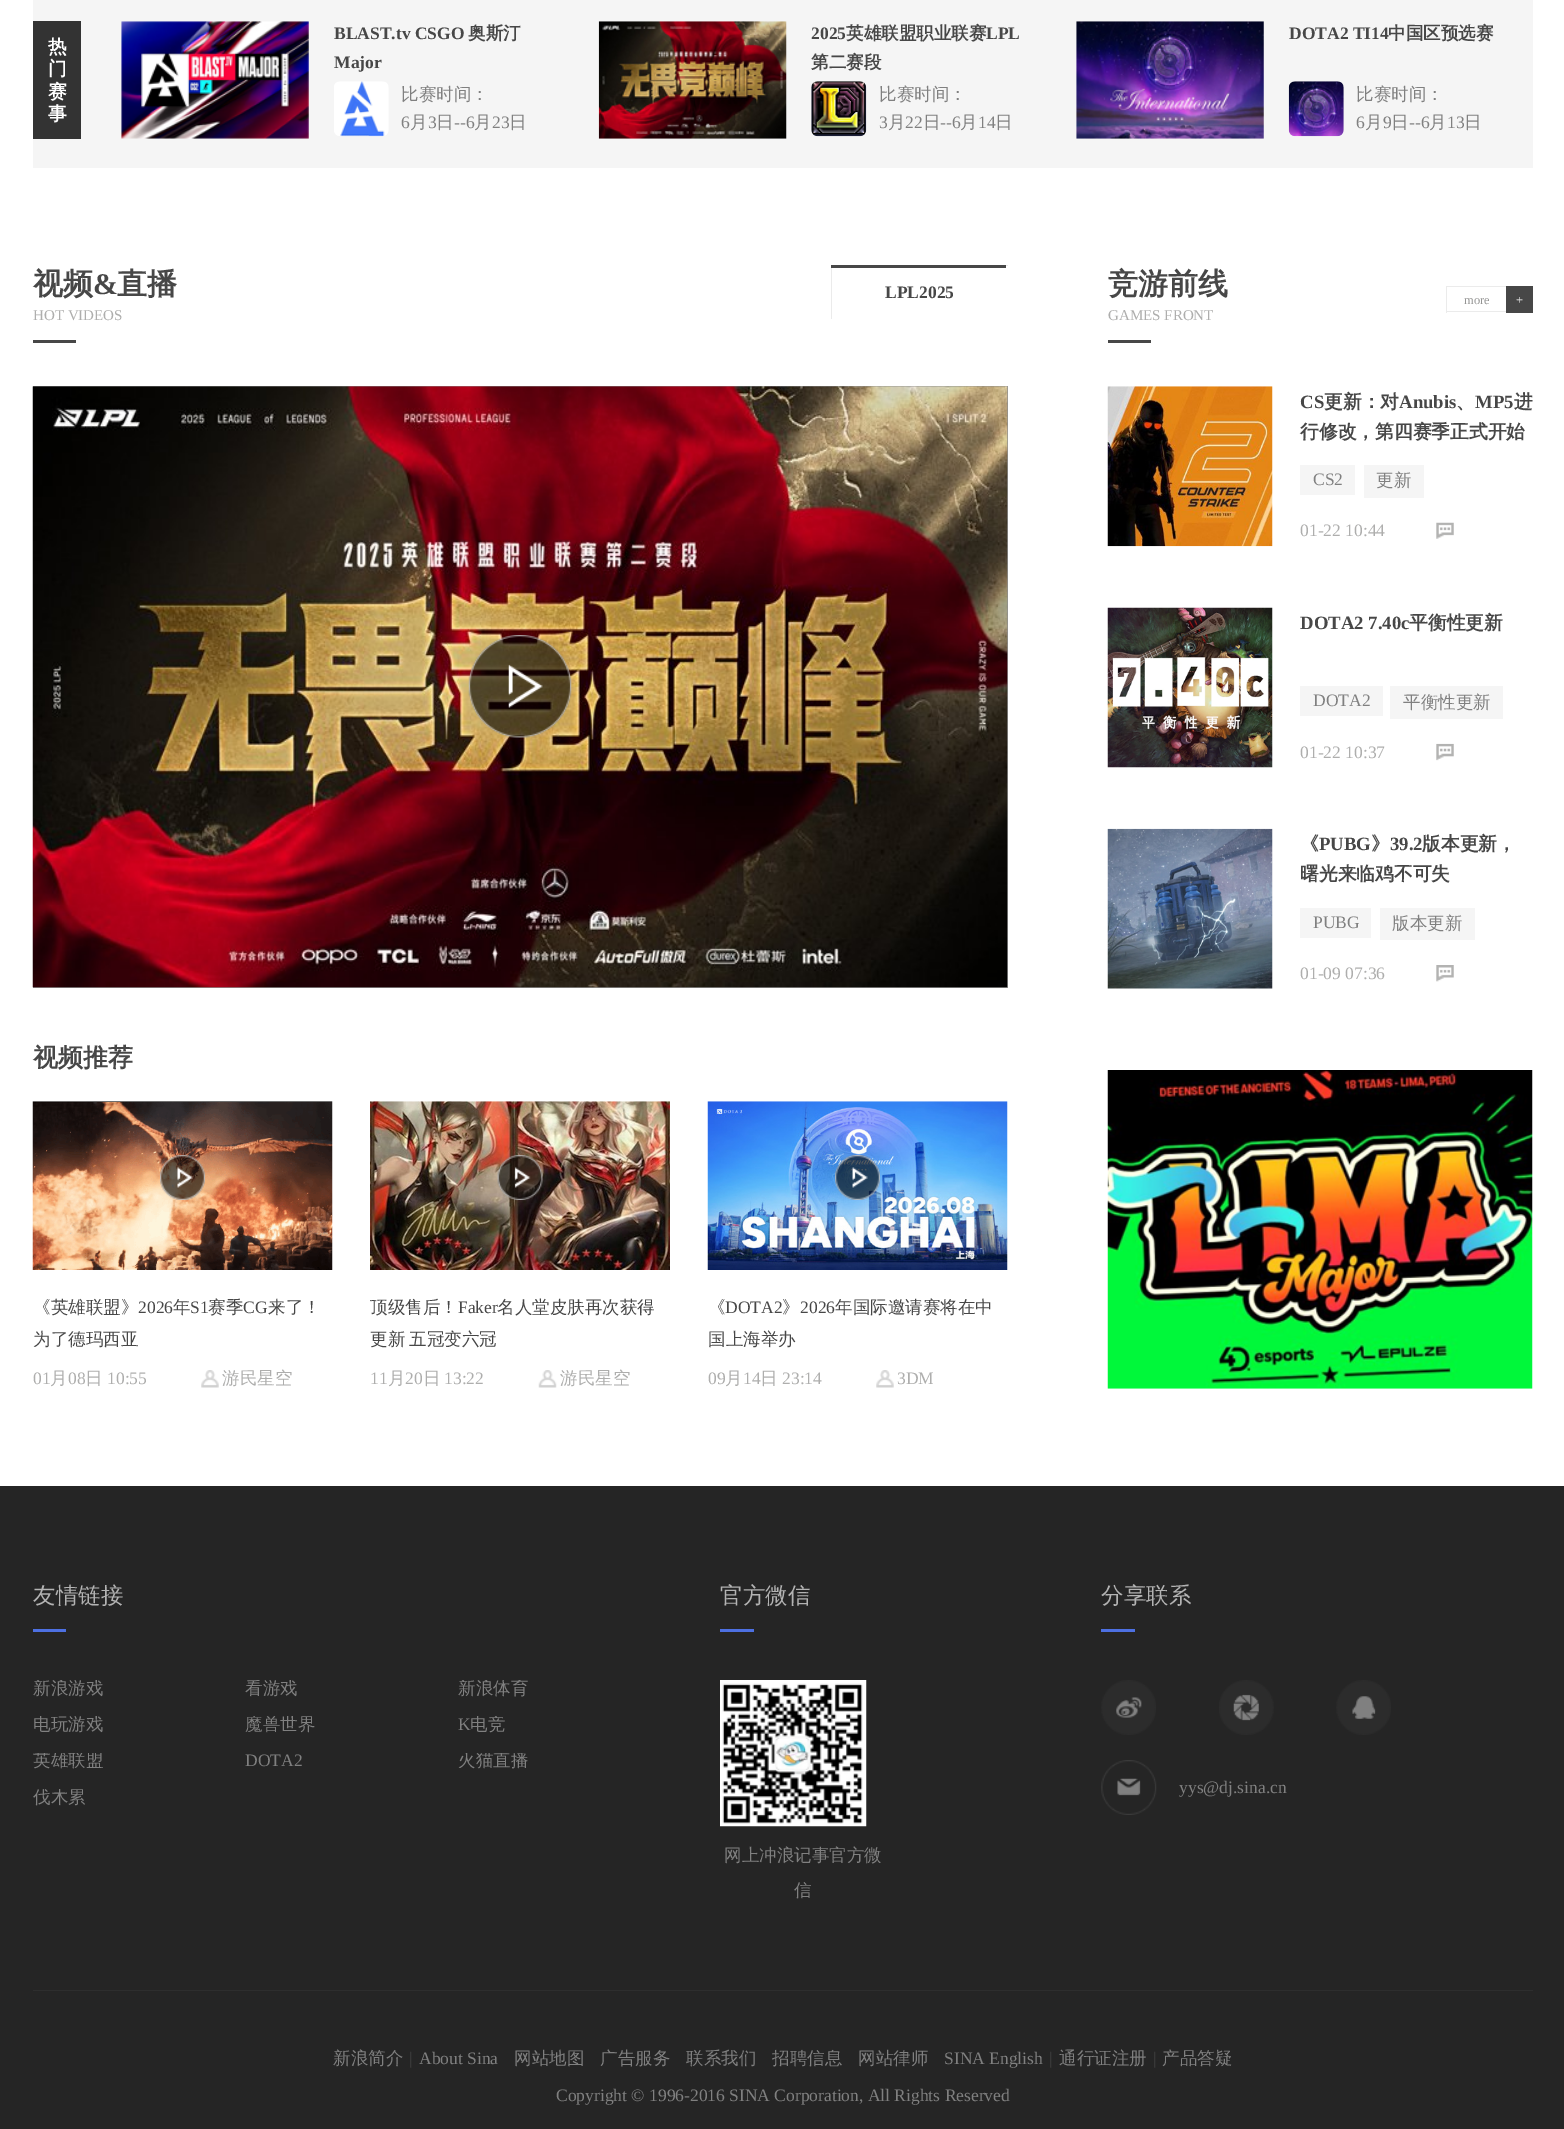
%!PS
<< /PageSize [1564 2129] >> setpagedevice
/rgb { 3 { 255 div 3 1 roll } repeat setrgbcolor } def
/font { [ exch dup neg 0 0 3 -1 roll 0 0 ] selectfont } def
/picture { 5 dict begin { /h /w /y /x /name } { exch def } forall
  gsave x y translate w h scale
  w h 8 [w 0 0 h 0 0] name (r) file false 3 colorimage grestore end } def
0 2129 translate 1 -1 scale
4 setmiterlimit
255 255 255 rgb
0 0 1564 2129 rectfill
245 245 245 rgb
33 0 1500 168 rectfill
51 51 51 rgb
33 21 48 118 rectfill
(img/1.rgb) 121 21 188 118 picture
(img/2.rgb) 334 81 55 56 picture
(img/3.rgb) 598 21 189 118 picture
(img/4.rgb) 811 81 56 56 picture
(img/5.rgb) 1076 21 188 118 picture
(img/6.rgb) 1288 81 56 56 picture
[
  [33 340 43 3 71 71 71]
  [831 265 1 54 235 235 235]
  [831 265 175 3 71 71 71]
  [1006 265 2 1 235 235 235]
  [33 386 975 602 142 142 142]
] { aload pop rgb rectfill } forall
(img/7.rgb) 32 386 976 602 picture
(img/8.rgb) 468 635 104 103 picture
(img/9.rgb) 32 1101 301 169 picture
(img/10.rgb) 160 1155 45 45 picture
(img/11.rgb) 201 1370 18 18 picture
(img/12.rgb) 370 1101 300 169 picture
(img/13.rgb) 497 1155 46 45 picture
(img/14.rgb) 538 1370 19 18 picture
(img/15.rgb) 707 1101 301 169 picture
(img/16.rgb) 835 1155 45 45 picture
(img/11.rgb) 876 1370 18 18 picture
[
  [1108 340 43 3 71 71 71]
  [1446 286 60 1 235 235 235]
  [1446 311 60 1 235 235 235]
  [1446 286 1 27 235 235 235]
  [1506 286 27 27 71 71 71]
] { aload pop rgb rectfill } forall
(img/17.rgb) 1107 386 166 161 picture
245 245 245 rgb
1300 465 55 30 rectfill
1364 465 60 33 rectfill
(img/18.rgb) 1436 522 18 17 picture
(img/19.rgb) 1107 607 166 161 picture
1300 686 83 30 rectfill
1390 686 113 33 rectfill
(img/20.rgb) 1436 743 18 18 picture
(img/21.rgb) 1107 828 166 161 picture
1300 908 71 30 rectfill
1380 908 95 32 rectfill
(img/22.rgb) 1436 965 18 17 picture
(img/23.rgb) 1107 1070 426 319 picture
[
  [0 1486 1564 643 37 37 37]
  [33 1990 1500 1 46 46 46]
  [33 1629 33 3 77 112 226]
  [720 1629 34 3 77 112 226]
] { aload pop rgb rectfill } forall
(img/24.rgb) 720 1680 147 147 picture
1101 1629 34 3 rectfill
(img/25.rgb) 1101 1680 55 55 picture
(img/26.rgb) 1219 1680 55 55 picture
(img/27.rgb) 1336 1680 55 55 picture
(img/28.rgb) 1101 1760 56 55 picture
/WenQuanYiZenHei-Bold 18.75 font
255 255 255 rgb
[
  [(热) 48 53]
  [(门) 48 75]
  [(赛) 48 98]
  [(事) 48 120]
] { aload pop moveto show } forall
/LiberationSerif-Bold 17.5 font
71 71 71 rgb
334 39 moveto (BLAST.tv CSGO) show
/WenQuanYiZenHei-Bold 17.5 font
468 39 moveto (奥斯汀) show
/LiberationSerif-Bold 17.5 font
334 68 moveto (Major) show
/WenQuanYiZenHei-Medium 17.5 font
128 128 128 rgb
401 100 moveto (比赛时间：) show
/LiberationSerif-Regular 17.5 font
401 128 moveto (6) show
/WenQuanYiZenHei-Medium 17.5 font
410 128 moveto (月) show
/LiberationSerif-Regular 17.5 font
428 128 moveto (3) show
/WenQuanYiZenHei-Medium 17.5 font
436 128 moveto (日) show
/LiberationSerif-Regular 17.5 font
454 128 moveto (--6) show
/WenQuanYiZenHei-Medium 17.5 font
474 128 moveto (月) show
/LiberationSerif-Regular 17.5 font
492 128 moveto (23) show
/WenQuanYiZenHei-Medium 17.5 font
509 128 moveto (日) show
/LiberationSerif-Bold 17.5 font
71 71 71 rgb
811 39 moveto (2025) show
/WenQuanYiZenHei-Bold 17.5 font
846 39 moveto (英雄联盟职业联赛) show
/LiberationSerif-Bold 17.5 font
986 39 moveto (LPL) show
/WenQuanYiZenHei-Bold 17.5 font
811 68 moveto (第二赛段) show
/WenQuanYiZenHei-Medium 17.5 font
128 128 128 rgb
879 100 moveto (比赛时间：) show
/LiberationSerif-Regular 17.5 font
879 128 moveto (3) show
/WenQuanYiZenHei-Medium 17.5 font
888 128 moveto (月) show
/LiberationSerif-Regular 17.5 font
905 128 moveto (22) show
/WenQuanYiZenHei-Medium 17.5 font
923 128 moveto (日) show
/LiberationSerif-Regular 17.5 font
940 128 moveto (--6) show
/WenQuanYiZenHei-Medium 17.5 font
960 128 moveto (月) show
/LiberationSerif-Regular 17.5 font
978 128 moveto (14) show
/WenQuanYiZenHei-Medium 17.5 font
995 128 moveto (日) show
/LiberationSerif-Bold 17.5 font
71 71 71 rgb
1289 39 moveto (DOTA2 TI14) show
/WenQuanYiZenHei-Bold 17.5 font
1388 39 moveto (中国区预选赛) show
/WenQuanYiZenHei-Medium 17.5 font
128 128 128 rgb
1356 100 moveto (比赛时间：) show
/LiberationSerif-Regular 17.5 font
1356 128 moveto (6) show
/WenQuanYiZenHei-Medium 17.5 font
1365 128 moveto (月) show
/LiberationSerif-Regular 17.5 font
1383 128 moveto (9) show
/WenQuanYiZenHei-Medium 17.5 font
1391 128 moveto (日) show
/LiberationSerif-Regular 17.5 font
1409 128 moveto (--6) show
/WenQuanYiZenHei-Medium 17.5 font
1429 128 moveto (月) show
/LiberationSerif-Regular 17.5 font
1447 128 moveto (13) show
/WenQuanYiZenHei-Medium 17.5 font
1464 128 moveto (日) show
/WenQuanYiZenHei-Bold 30 font
71 71 71 rgb
33 294 moveto (视频) show
/LiberationSerif-Bold 30 font
93 294 moveto (&) show
/WenQuanYiZenHei-Bold 30 font
117 294 moveto (直播) show
/LiberationSerif-Regular 15 font
174 174 173 rgb
33 320 moveto (HOT VIDEOS) show
/LiberationSerif-Bold 17.5 font
71 71 71 rgb
885 298 moveto (LPL2025) show
/WenQuanYiZenHei-Bold 25 font
33 1066 moveto (视频推荐) show
/WenQuanYiZenHei-Medium 17.5 font
33 1313 moveto (《英雄联盟》) show
/LiberationSerif-Regular 17.5 font
138 1313 moveto (2026) show
/WenQuanYiZenHei-Medium 17.5 font
173 1313 moveto (年) show
/LiberationSerif-Regular 17.5 font
190 1313 moveto (S1) show
/WenQuanYiZenHei-Medium 17.5 font
208 1313 moveto (赛季) show
/LiberationSerif-Regular 17.5 font
243 1313 moveto (CG) show
/WenQuanYiZenHei-Medium 17.5 font
268 1313 moveto (来了！) show
33 1345 moveto (为了德玛西亚) show
/LiberationSerif-Regular 17.5 font
174 174 173 rgb
33 1384 moveto (01) show
/WenQuanYiZenHei-Medium 17.5 font
50 1384 moveto (月) show
/LiberationSerif-Regular 17.5 font
68 1384 moveto (08) show
/WenQuanYiZenHei-Medium 17.5 font
85 1384 moveto (日) show
/LiberationSerif-Regular 17.5 font
107 1384 moveto (10:55) show
/WenQuanYiZenHei-Medium 17.5 font
222 1384 moveto (游民星空) show
71 71 71 rgb
370 1313 moveto (顶级售后！) show
/LiberationSerif-Regular 17.5 font
458 1313 moveto (Faker) show
/WenQuanYiZenHei-Medium 17.5 font
497 1313 moveto (名人堂皮肤再次获得) show
370 1345 moveto -1 0 32 (更新 五冠变六冠) widthshow
/LiberationSerif-Regular 17.5 font
174 174 173 rgb
370 1384 moveto (11) show
/WenQuanYiZenHei-Medium 17.5 font
388 1384 moveto (月) show
/LiberationSerif-Regular 17.5 font
405 1384 moveto (20) show
/WenQuanYiZenHei-Medium 17.5 font
423 1384 moveto (日) show
/LiberationSerif-Regular 17.5 font
444 1384 moveto (13:22) show
/WenQuanYiZenHei-Medium 17.5 font
560 1384 moveto (游民星空) show
71 71 71 rgb
708 1313 moveto (《) show
/LiberationSerif-Regular 17.5 font
725 1313 moveto (DOTA2) show
/WenQuanYiZenHei-Medium 17.5 font
782 1313 moveto (》) show
/LiberationSerif-Regular 17.5 font
800 1313 moveto (2026) show
/WenQuanYiZenHei-Medium 17.5 font
835 1313 moveto (年国际邀请赛将在中) show
708 1345 moveto (国上海举办) show
/LiberationSerif-Regular 17.5 font
174 174 173 rgb
708 1384 moveto (09) show
/WenQuanYiZenHei-Medium 17.5 font
725 1384 moveto (月) show
/LiberationSerif-Regular 17.5 font
743 1384 moveto (14) show
/WenQuanYiZenHei-Medium 17.5 font
760 1384 moveto (日) show
/LiberationSerif-Regular 17.5 font
782 1384 moveto (23:14) show
897 1384 moveto (3DM) show
/WenQuanYiZenHei-Bold 30 font
71 71 71 rgb
1108 294 moveto (竞游前线) show
/LiberationSerif-Regular 15 font
174 174 173 rgb
1108 320 moveto (GAMES FRONT) show
/LiberationSerif-Regular 12.5 font
148 148 147 rgb
1464 304 moveto (more) show
255 255 255 rgb
1516 304 moveto (+) show
/LiberationSerif-Bold 18.75 font
71 71 71 rgb
1300 408 moveto (CS) show
/WenQuanYiZenHei-Bold 18.75 font
1324 408 moveto (更新：对) show
/LiberationSerif-Bold 18.75 font
1399 408 moveto (Anubis) show
/WenQuanYiZenHei-Bold 18.75 font
1456 408 moveto (、) show
/LiberationSerif-Bold 18.75 font
1475 408 moveto (MP5) show
/WenQuanYiZenHei-Bold 18.75 font
1514 408 moveto (进) show
1300 438 moveto (行修改，第四赛季正式开始) show
/LiberationSerif-Regular 17.5 font
128 128 128 rgb
1313 485 moveto (CS2) show
/WenQuanYiZenHei-Medium 17.5 font
1376 486 moveto (更新) show
/LiberationSerif-Regular 17.5 font
174 174 173 rgb
1300 536 moveto (01-22 10:44) show
/LiberationSerif-Bold 18.75 font
71 71 71 rgb
1300 629 moveto (DOTA2 7.40c) show
/WenQuanYiZenHei-Bold 18.75 font
1409 629 moveto (平衡性更新) show
/LiberationSerif-Regular 17.5 font
128 128 128 rgb
1313 706 moveto (DOTA2) show
/WenQuanYiZenHei-Medium 17.5 font
1403 708 moveto (平衡性更新) show
/LiberationSerif-Regular 17.5 font
174 174 173 rgb
1300 758 moveto (01-22 10:37) show
/WenQuanYiZenHei-Bold 18.75 font
71 71 71 rgb
1300 850 moveto (《) show
/LiberationSerif-Bold 18.75 font
1319 850 moveto (PUBG) show
/WenQuanYiZenHei-Bold 18.75 font
1371 850 moveto (》) show
/LiberationSerif-Bold 18.75 font
1390 850 moveto (39.2) show
/WenQuanYiZenHei-Bold 18.75 font
1422 850 moveto (版本更新，) show
1300 880 moveto (曙光来临鸡不可失) show
/LiberationSerif-Regular 17.5 font
128 128 128 rgb
1313 928 moveto (PUBG) show
/WenQuanYiZenHei-Medium 17.5 font
1392 929 moveto (版本更新) show
/LiberationSerif-Regular 17.5 font
174 174 173 rgb
1300 979 moveto (01-09 07:36) show
/WenQuanYiZenHei-Medium 22.5 font
179 179 179 rgb
33 1603 moveto (友情链接) show
gsave
33 1680 212 18 rectclip
/WenQuanYiZenHei-Medium 17.5 font
128 128 128 rgb
33 1694 moveto (新浪游戏) show
grestore
gsave
245 1680 213 18 rectclip
/WenQuanYiZenHei-Medium 17.5 font
128 128 128 rgb
245 1694 moveto (看游戏) show
grestore
gsave
458 1680 212 18 rectclip
/WenQuanYiZenHei-Medium 17.5 font
128 128 128 rgb
458 1694 moveto (新浪体育) show
grestore
gsave
33 1716 212 18 rectclip
/WenQuanYiZenHei-Medium 17.5 font
128 128 128 rgb
33 1730 moveto (电玩游戏) show
grestore
gsave
245 1716 213 18 rectclip
/WenQuanYiZenHei-Medium 17.5 font
128 128 128 rgb
245 1730 moveto (魔兽世界) show
grestore
/LiberationSerif-Regular 17.5 font
128 128 128 rgb
458 1730 moveto (K) show
gsave
458 1716 212 18 rectclip
/WenQuanYiZenHei-Medium 17.5 font
470 1730 moveto (电竞) show
grestore
gsave
33 1753 212 17 rectclip
/WenQuanYiZenHei-Medium 17.5 font
33 1766 moveto (英雄联盟) show
grestore
245 1766 moveto (DOTA2) show
gsave
458 1753 212 17 rectclip
/WenQuanYiZenHei-Medium 17.5 font
458 1766 moveto (火猫直播) show
grestore
gsave
33 1789 212 17 rectclip
/WenQuanYiZenHei-Medium 17.5 font
33 1803 moveto (伐木累) show
grestore
/WenQuanYiZenHei-Medium 22.5 font
179 179 179 rgb
720 1603 moveto (官方微信) show
/WenQuanYiZenHei-Medium 17.5 font
128 128 128 rgb
724 1861 moveto (网上冲浪记事官方微) show
794 1896 moveto (信) show
/WenQuanYiZenHei-Medium 22.5 font
179 179 179 rgb
1101 1603 moveto (分享联系) show
/LiberationSerif-Regular 17.5 font
128 128 128 rgb
1179 1793 moveto (yys@dj.sina.cn) show
/WenQuanYiZenHei-Medium 17.5 font
333 2064 moveto (新浪简介) show
/LiberationSerif-Regular 17.5 font
63 63 63 rgb
409 2064 moveto (|) show
128 128 128 rgb
419 2064 moveto (About Sina) show
/WenQuanYiZenHei-Medium 17.5 font
[
  [(网站地图) 514 2064]
  [(广告服务) 600 2064]
  [(联系我们) 686 2064]
  [(招聘信息) 772 2064]
  [(网站律师) 858 2064]
] { aload pop moveto show } forall
/LiberationSerif-Regular 17.5 font
944 2064 moveto (SINA English) show
63 63 63 rgb
1049 2064 moveto (|) show
/WenQuanYiZenHei-Medium 17.5 font
128 128 128 rgb
1059 2064 moveto (通行证注册) show
/LiberationSerif-Regular 17.5 font
63 63 63 rgb
1153 2064 moveto (|) show
/WenQuanYiZenHei-Medium 17.5 font
128 128 128 rgb
1162 2064 moveto (产品答疑) show
/LiberationSerif-Regular 17.5 font
556 2101 moveto (Copyright © 1996-2016 SINA Corporation, All Rights Reserved) show
showpage
